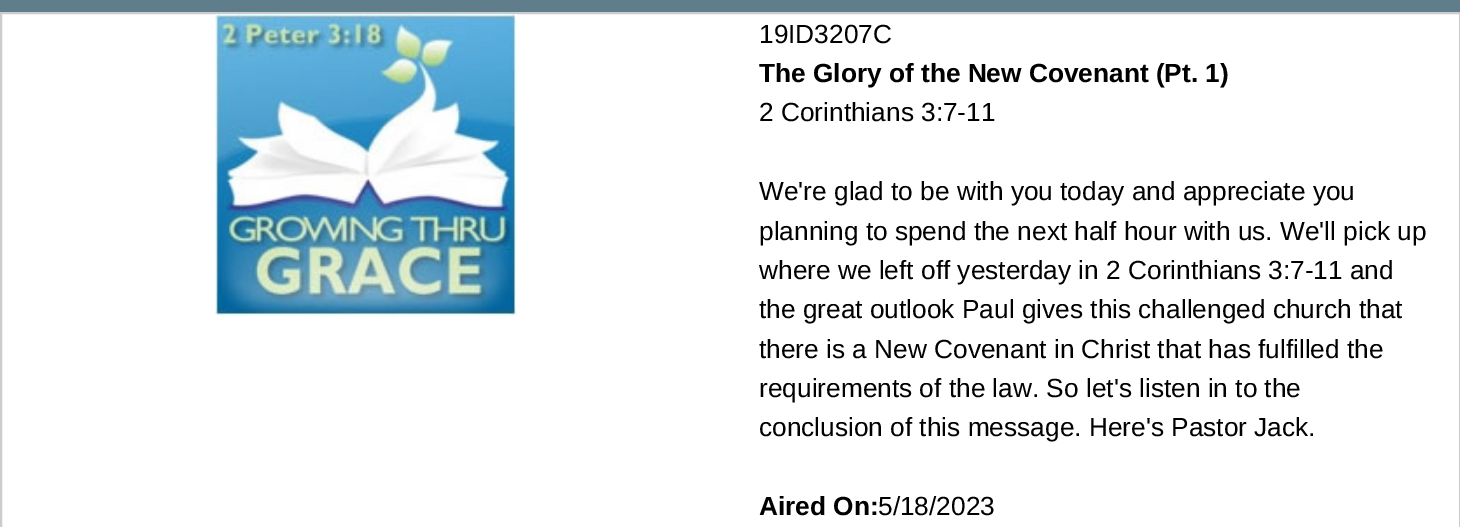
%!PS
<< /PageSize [1460 527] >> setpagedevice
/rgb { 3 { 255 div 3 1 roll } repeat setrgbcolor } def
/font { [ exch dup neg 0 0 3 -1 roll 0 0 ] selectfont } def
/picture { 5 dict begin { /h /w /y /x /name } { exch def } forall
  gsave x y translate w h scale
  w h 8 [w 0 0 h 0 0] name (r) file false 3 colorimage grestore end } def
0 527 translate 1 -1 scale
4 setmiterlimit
255 255 255 rgb
0 0 1460 527 rectfill
96 125 139 rgb
0 0 1460 12 rectfill
204 204 204 rgb
2 setlinewidth
1 13 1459 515 rectstroke
(img/1.rgb) 215 14 302 302 picture
/LiberationSans-Regular 26.25 font
0 0 0 rgb
759 43 moveto (19ID3207C) show
/LiberationSans-Bold 26.25 font
759 82 moveto (The Glory of the New Covenant \(Pt. 1\)) show
/LiberationSans-Regular 26.25 font
[
  [(2 Corinthians 3:7-11) 759 121]
  [(We're glad to be with you today and appreciate you) 759 200]
  [(planning to spend the next half hour with us. We'll pick up) 759 240]
  [(where we left off yesterday in 2 Corinthians 3:7-11 and) 759 279]
  [(the great outlook Paul gives this challenged church that) 759 318]
  [(there is a New Covenant in Christ that has fulfilled the) 759 358]
  [(requirements of the law. So let's listen in to the) 759 397]
  [(conclusion of this message. Here's Pastor Jack.) 759 436]
] { aload pop moveto show } forall
/LiberationSans-Bold 26.25 font
759 515 moveto (Aired On:) show
/LiberationSans-Regular 26.25 font
878 515 moveto (5/18/2023) show
showpage
